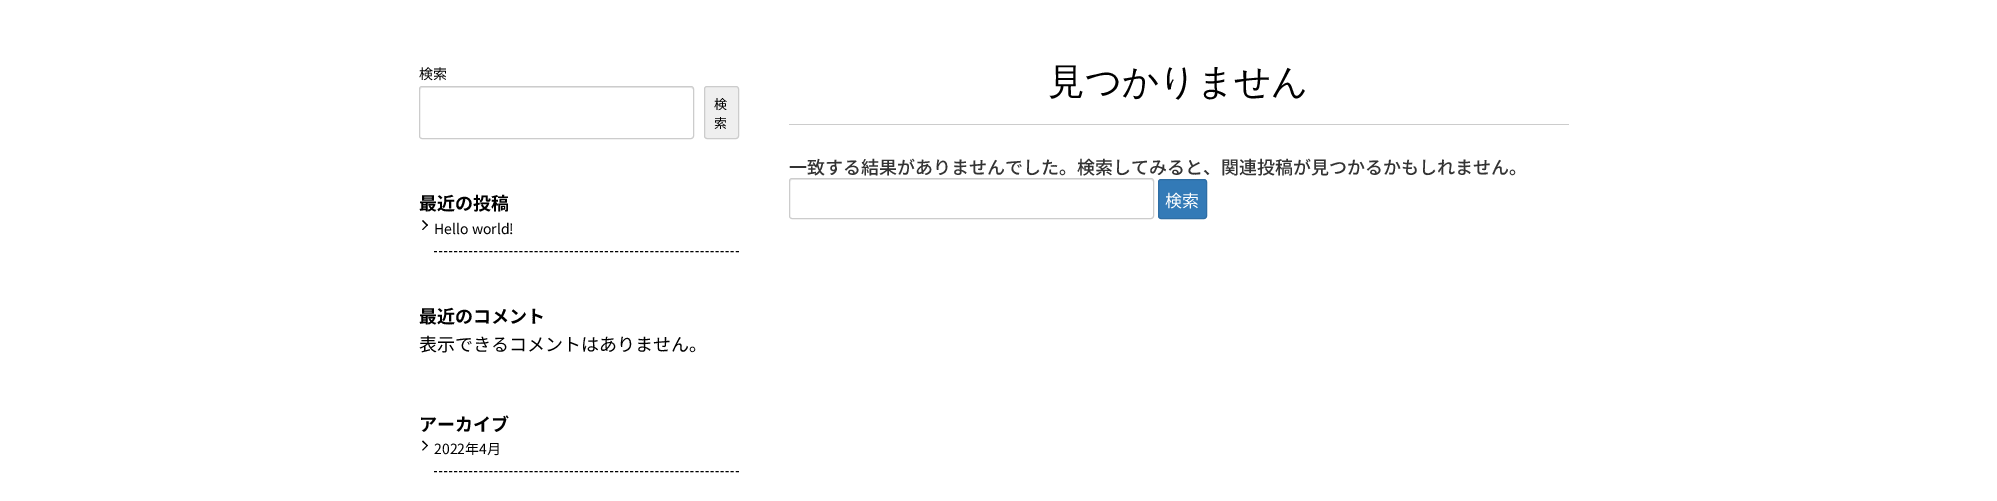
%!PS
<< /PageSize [1997 501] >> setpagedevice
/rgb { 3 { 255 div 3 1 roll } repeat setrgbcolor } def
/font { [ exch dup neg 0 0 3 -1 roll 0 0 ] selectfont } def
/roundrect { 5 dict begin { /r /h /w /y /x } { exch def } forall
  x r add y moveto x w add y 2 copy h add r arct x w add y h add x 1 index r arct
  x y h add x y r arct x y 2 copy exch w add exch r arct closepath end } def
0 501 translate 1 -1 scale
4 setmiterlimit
255 255 255 rgb
0 0 1997 501 rectfill
236 236 236 rgb
422 88 moveto 691 88 lineto 692 88 693 89 693 90 curveto 693 89 693 87 691 87 curveto 422 87 lineto 420 88 lineto 420 90 lineto 420 89 421 88 422 88 curveto closepath fill
204 204 204 rgb
419.5 86.5 274 52 2.5 roundrect stroke
239 239 239 rgb
704.5 86.5 34 52 2.5 roundrect gsave fill grestore
204 204 204 rgb
stroke
0 0 0 rgb
[3 2.03] 0 setdash
434 251.5 moveto 739 251.5 lineto stroke
422 221 moveto 423 220 lineto 428 225 lineto 427 226 lineto closepath fill
422 229.5 moveto 427 224.5 lineto 428 225 lineto 423 230 lineto closepath fill
434 471.5 moveto 739 471.5 lineto stroke
422 441.5 moveto 423 440.5 lineto 428 445.5 lineto 427 446 lineto closepath fill
422 450 moveto 427 445 lineto 428 445.5 lineto 423 450.5 lineto closepath fill
204 204 204 rgb
789 124 780 1 rectfill
236 236 236 rgb
792 180 moveto 1151 180 lineto 1152 180 1153 181 1153 182 curveto 1153 181 1153 179 1151 179 curveto 792 179 lineto 790 179 790 181 790 182 curveto 790 181 791 180 792 180 curveto closepath fill
204 204 204 rgb
[] 0 setdash
789.5 178.5 364 40 2.5 roundrect stroke
51 122 183 rgb
1158.5 179.5 48 39 2.5 roundrect gsave fill grestore
46 109 164 rgb
stroke
/NotoSansJP-Regular 14 font
0 0 0 rgb
419 79 moveto (検索) show
/NotoSansJP-Regular 13 font
714 109 moveto (検) show
714 128 moveto (索) show
/NotoSansJP-Bold 18 font
419 210 moveto (最近の投稿) show
/NotoSansJP-Regular 14 font
434 234 moveto (Hello world!) show
/NotoSansJP-Bold 18 font
419 323 moveto (最近のコメント) show
/NotoSansJP-Regular 18 font
419 351 moveto (表示できるコメントはありません。) show
/NotoSansJP-Bold 18 font
419 431 moveto (アーカイブ) show
/NotoSansJP-Regular 14 font
434 454 moveto (2022年4月) show
/WenQuanYiZenHei-Medium 36.5 font
1048 94 moveto (見つかりません) show
/NotoSansJP-Medium 18 font
51 51 51 rgb
789 174 moveto (一致する結果がありませんでした。検索してみると、関連投稿が見つかるかもしれません。) show
/NotoSansJP-Regular 17 font
255 255 255 rgb
1165 207 moveto (検索) show
showpage
